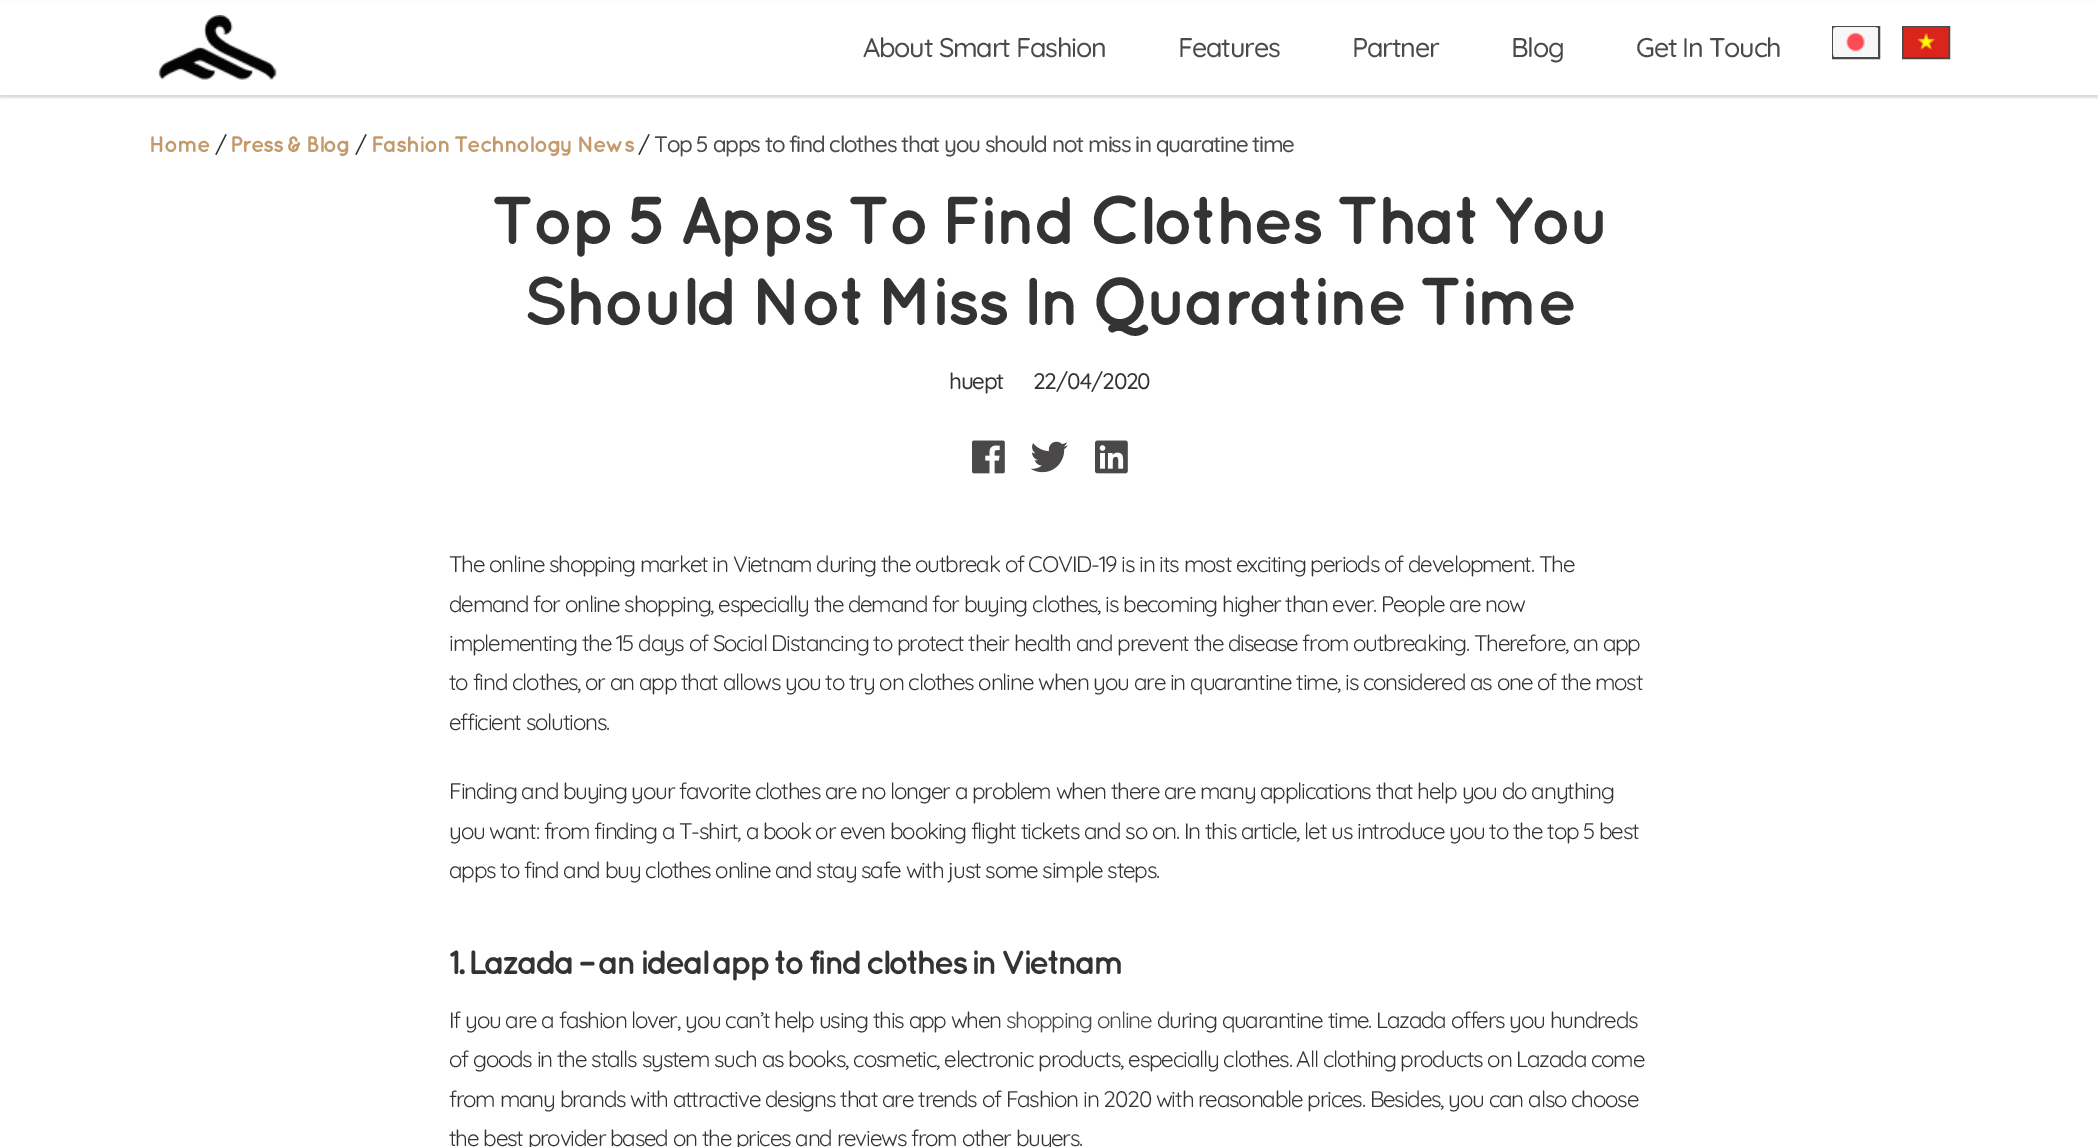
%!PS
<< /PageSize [2098 1147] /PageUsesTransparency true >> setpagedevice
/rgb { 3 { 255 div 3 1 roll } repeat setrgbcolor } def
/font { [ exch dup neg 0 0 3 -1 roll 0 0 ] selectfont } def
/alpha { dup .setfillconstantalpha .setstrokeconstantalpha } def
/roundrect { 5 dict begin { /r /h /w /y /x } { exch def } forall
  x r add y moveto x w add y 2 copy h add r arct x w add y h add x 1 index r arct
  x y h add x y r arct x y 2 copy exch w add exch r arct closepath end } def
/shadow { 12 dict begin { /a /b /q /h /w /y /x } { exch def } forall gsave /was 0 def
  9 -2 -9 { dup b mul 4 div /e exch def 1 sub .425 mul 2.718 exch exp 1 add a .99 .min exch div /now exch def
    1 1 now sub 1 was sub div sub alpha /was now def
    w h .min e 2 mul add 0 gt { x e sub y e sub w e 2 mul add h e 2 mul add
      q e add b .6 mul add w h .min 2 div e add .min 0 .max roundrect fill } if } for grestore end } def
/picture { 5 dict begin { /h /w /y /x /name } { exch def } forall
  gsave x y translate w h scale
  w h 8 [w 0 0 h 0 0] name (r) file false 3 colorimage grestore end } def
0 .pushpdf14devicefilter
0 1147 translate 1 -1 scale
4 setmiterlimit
255 255 255 rgb
0 0 2098 1147 rectfill
75 72 73 rgb
0 3 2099 95 0 1 0.2 shadow
255 255 255 rgb
0 2 2098 93 rectfill
(img/1.rgb) 158 15 119 65 picture
75 72 73 rgb
2 setlinewidth
1833 27 46 31 rectstroke
(img/2.rgb) 1833 27 45 30 picture
1903 27 46 31 rectstroke
(img/3.rgb) 1903 27 46 30 picture
(img/4.rgb) 972 440 33 34 picture
(img/5.rgb) 1030 441 38 32 picture
(img/6.rgb) 1095 440 33 34 picture
/Quicksand-Medium 27 font
863 57 moveto -1.2 0 (About Smart Fashion) ashow
1178 57 moveto -1.2 0 (Features) ashow
1352 57 moveto -1.2 0 (Partner) ashow
1511 57 moveto -1.2 0 (Blog) ashow
1636 57 moveto -1.2 0 (Get In Touch) ashow
/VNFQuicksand-Bold 22.5 font
196 154 108 rgb
149 152 moveto -1.2 0 (Home) ashow
/Quicksand-Medium 22.5 font
51 51 51 rgb
215 152 moveto -1.2 0 (/) ashow
/VNFQuicksand-Bold 22.5 font
196 154 108 rgb
230 152 moveto -1.2 0 (Press & Blog) ashow
/Quicksand-Medium 22.5 font
51 51 51 rgb
355 152 moveto -1.2 0 (/) ashow
/VNFQuicksand-Bold 22.5 font
196 154 108 rgb
371 152 moveto -1.2 0 (Fashion Technology News) ashow
/Quicksand-Medium 22.5 font
51 51 51 rgb
638 152 moveto -1.2 0 (/) ashow
75 72 73 rgb
654 152 moveto -1.2 0 (Top 5 apps to find clothes that you should not miss in quaratine time) ashow
/VNFQuicksand-Bold 67.5 font
51 51 51 rgb
491 244 moveto -3 0 (Top 5 Apps To Find Clothes That You) ashow
523 325 moveto -3 0 (Should Not Miss In Quaratine Time) ashow
/Quicksand-Medium 22.5 font
949 389 moveto -1.2 0 (huept) ashow
1033 389 moveto -1.2 0 (22/04/2020) ashow
/Quicksand-Regular 22.5 font
449 572 moveto -1.2 0 (The online shopping market in Vietnam during the outbreak of COVID-19 is in its most exciting periods of development. The) ashow
449 612 moveto -1.2 0 (demand for online shopping, especially the demand for buying clothes, is becoming higher than ever. People are now) ashow
449 651 moveto -1.2 0 (implementing the 15 days of Social Distancing to protect their health and prevent the disease from outbreaking. Therefore, an app) ashow
449 690 moveto -1.2 0 (to find clothes, or an app that allows you to try on clothes online when you are in quarantine time, is considered as one of the most) ashow
449 730 moveto -1.2 0 (efficient solutions.) ashow
449 799 moveto -1.2 0 (Finding and buying your favorite clothes are no longer a problem when there are many applications that help you do anything) ashow
449 839 moveto -1.2 0 (you want: from finding a T-shirt, a book or even booking flight tickets and so on. In this article, let us introduce you to the top 5 best) ashow
449 878 moveto -1.2 0 (apps to find and buy clothes online and stay safe with just some simple steps.) ashow
/VNFQuicksand-Bold 33.75 font
449 974 moveto -3 0 (1. Lazada – an ideal app to find clothes in Vietnam) ashow
/Quicksand-Regular 22.5 font
449 1028 moveto -1.2 0 (If you are a fashion lover, you can’t help using this app when) ashow
75 72 73 rgb
1006 1028 moveto -1.2 0 (shopping online) ashow
51 51 51 rgb
1157 1028 moveto -1.2 0 (during quarantine time. Lazada offers you hundreds) ashow
449 1067 moveto -1.2 0 (of goods in the stalls system such as books, cosmetic, electronic products, especially clothes. All clothing products on Lazada come) ashow
449 1107 moveto -1.2 0 (from many brands with attractive designs that are trends of Fashion in 2020 with reasonable prices. Besides, you can also choose) ashow
449 1146 moveto -1.2 0 (the best provider based on the prices and reviews from other buyers.) ashow
.poppdf14devicefilter showpage
